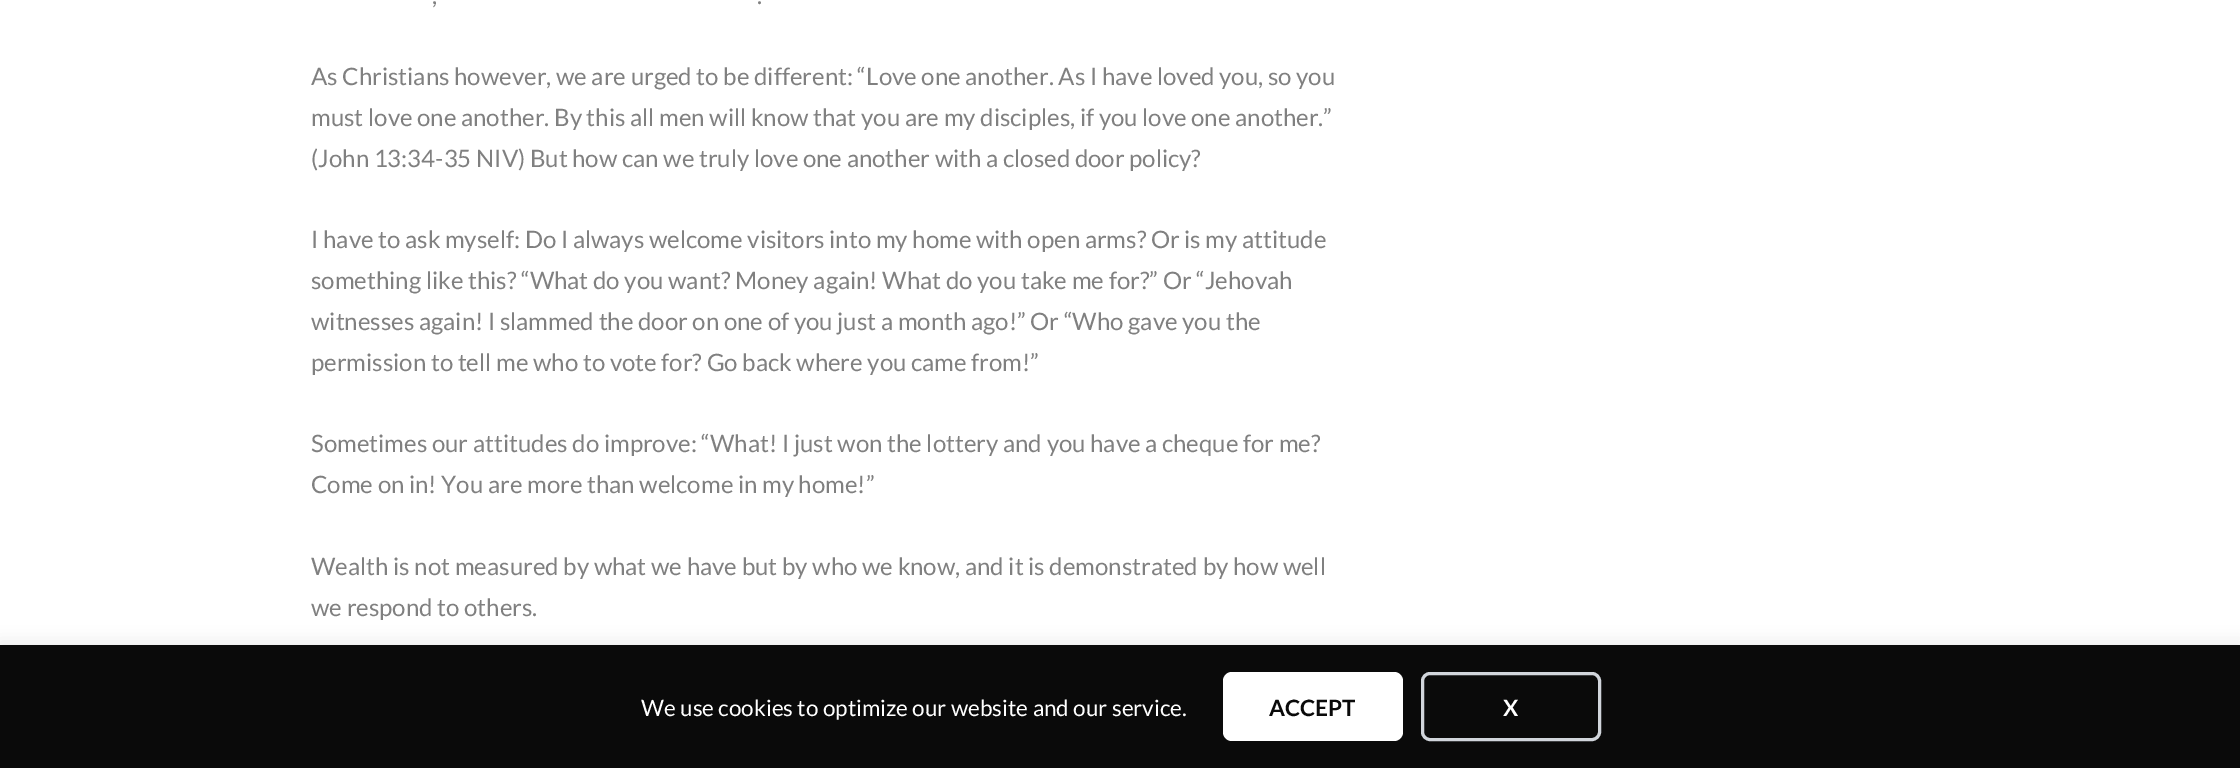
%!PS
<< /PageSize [2240 768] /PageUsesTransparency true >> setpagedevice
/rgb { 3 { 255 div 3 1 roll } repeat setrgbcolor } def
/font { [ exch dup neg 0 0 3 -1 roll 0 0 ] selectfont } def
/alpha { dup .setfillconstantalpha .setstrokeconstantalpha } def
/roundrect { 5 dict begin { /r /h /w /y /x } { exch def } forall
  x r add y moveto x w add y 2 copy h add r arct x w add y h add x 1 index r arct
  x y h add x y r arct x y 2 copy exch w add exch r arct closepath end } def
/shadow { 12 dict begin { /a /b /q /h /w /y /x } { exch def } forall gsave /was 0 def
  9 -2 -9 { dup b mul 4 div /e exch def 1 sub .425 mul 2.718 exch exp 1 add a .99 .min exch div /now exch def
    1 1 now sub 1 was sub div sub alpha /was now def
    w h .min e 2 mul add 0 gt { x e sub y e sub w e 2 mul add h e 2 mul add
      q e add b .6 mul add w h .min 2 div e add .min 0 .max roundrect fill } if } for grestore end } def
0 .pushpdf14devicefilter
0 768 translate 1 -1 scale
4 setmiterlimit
255 255 255 rgb
0 0 2240 768 rectfill
0 0 0 rgb
0 642 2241 123 0 7.5 0.08 shadow
10 10 10 rgb
0 645 2240 123 rectfill
255 255 255 rgb
1223 672 180 69 9 roundrect fill
209 213 219 rgb
3 setlinewidth
1422.5 673.5 177 66 7.5 roundrect stroke
/Lato-Regular 24 font
128 128 128 rgb
[
  [(,) 432 4]
  [(.) 757 4]
  [(As Christians however, we are urged to be different: “Love one another. As I have loved you, so you) 311 85]
  [(must love one another. By this all men will know that you are my disciples, if you love one another.”) 311 126]
  [(\(John 13:34-35 NIV\) But how can we truly love one another with a closed door policy?) 311 167]
  [(I have to ask myself: Do I always welcome visitors into my home with open arms? Or is my attitude) 311 248]
  [(something like this? “What do you want? Money again! What do you take me for?” Or “Jehovah) 311 289]
  [(witnesses again! I slammed the door on one of you just a month ago!” Or “Who gave you the) 311 330]
  [(permission to tell me who to vote for? Go back where you came from!”) 311 371]
  [(Sometimes our attitudes do improve: “What! I just won the lottery and you have a cheque for me?) 311 452]
  [(Come on in! You are more than welcome in my home!”) 311 493]
  [(Wealth is not measured by what we have but by who we know, and it is demonstrated by how well) 311 575]
  [(we respond to others.) 311 616]
] { aload pop moveto show } forall
/Lato-Regular 22.5 font
255 255 255 rgb
641 716 moveto (We use cookies to optimize our website and our service.) show
/Lato-Bold 22.5 font
10 10 10 rgb
1269 716 moveto (ACCEPT) show
255 255 255 rgb
1503 716 moveto (X) show
.poppdf14devicefilter showpage
